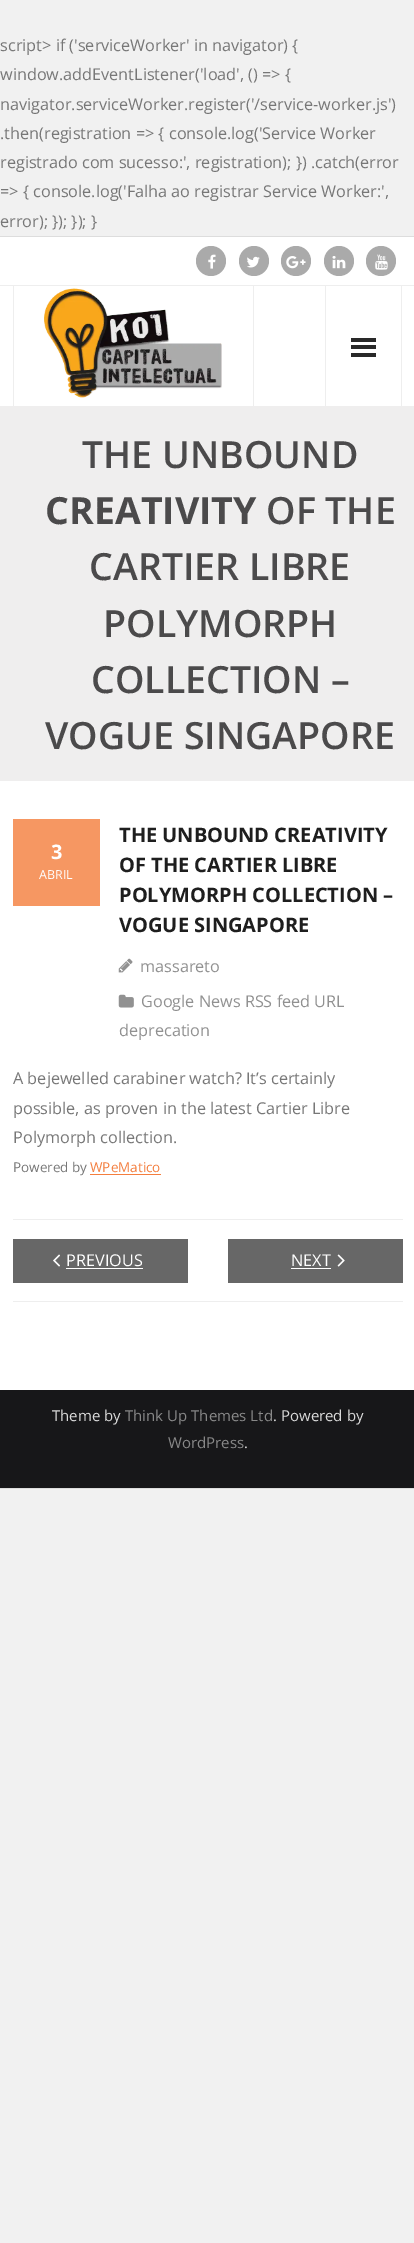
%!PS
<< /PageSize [414 2243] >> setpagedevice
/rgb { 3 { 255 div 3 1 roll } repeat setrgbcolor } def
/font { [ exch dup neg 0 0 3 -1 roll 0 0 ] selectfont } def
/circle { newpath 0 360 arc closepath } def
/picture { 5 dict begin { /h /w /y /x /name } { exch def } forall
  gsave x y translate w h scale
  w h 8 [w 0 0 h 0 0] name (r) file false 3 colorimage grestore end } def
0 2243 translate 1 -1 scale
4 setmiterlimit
241 241 241 rgb
0 0 414 2243 rectfill
[
  [0 237 414 1153 255 255 255]
  [0 236 414 1 221 221 221]
  [0 1488 414 1 221 221 221]
  [0 285 414 1 238 238 238]
] { aload pop rgb rectfill } forall
170 170 170 rgb
211 261 15 circle fill
(img/1.rgb) 208 254 8 15 picture
254 261 15 circle fill
(img/2.rgb) 247 256 13 12 picture
296 261 15 circle fill
(img/3.rgb) 286 256 20 13 picture
339 261 15 circle fill
(img/4.rgb) 332 256 14 13 picture
381 261 15 circle fill
(img/5.rgb) 375 254 13 16 picture
238 238 238 rgb
253 286 1 120 rectfill
13 286 1 120 rectfill
(img/6.rgb) 44 288 178 110 picture
[
  [401 286 1 120 238 238 238]
  [325 286 1 120 238 238 238]
  [351 338 25 4 41 41 41]
  [351 345 25 4 41 41 41]
  [351 353 25 4 41 41 41]
  [0 406 414 375 239 238 238]
  [13 819 87 87 246 151 98]
] { aload pop rgb rectfill } forall
(img/7.rgb) 118 958 15 15 picture
(img/8.rgb) 118 994 16 14 picture
[
  [90 1174 71 1 244 126 62]
  [13 1219 390 1 238 238 238]
  [13 1301 390 1 238 238 238]
  [13 1239 175 44 103 103 103]
] { aload pop rgb rectfill } forall
(img/9.rgb) 53 1254 7 13 picture
[
  [66 1268 77 1 255 255 255]
  [228 1239 175 44 103 103 103]
  [291 1268 40 1 255 255 255]
] { aload pop rgb rectfill } forall
(img/10.rgb) 337 1254 8 13 picture
23 23 25 rgb
0 1390 414 98 rectfill
/OpenSans-Regular 16.25 font
119 119 119 rgb
[
  [(script> if \('serviceWorker' in navigator\) {) 0 51]
  [(window.addEventListener\('load', \(\) => {) 0 80]
  [(navigator.serviceWorker.register\('/service-worker.js'\)) 0 110]
  [(.then\(registration => { console.log\('Service Worker) 0 139]
  [(registrado com sucesso:', registration\); }\) .catch\(error) 0 168]
  [(=> { console.log\('Falha ao registrar Service Worker:',) 0 197]
  [(error\); }\); }\); }) 0 227]
] { aload pop moveto show } forall
/OpenSans-SemiBold 37.5 font
75 74 75 rgb
82 468 moveto (THE UNBOUND) show
/OpenSans-Bold 37.5 font
45 524 moveto (CREATIVITY) show
/OpenSans-SemiBold 37.5 font
[
  [(OF THE) 266 524]
  [(CARTIER LIBRE) 89 580]
  [(POLYMORPH) 103 637]
  [(COLLECTION –) 91 693]
  [(VOGUE SINGAPORE) 45 749]
] { aload pop moveto show } forall
/OpenSans-Bold 20 font
30 30 30 rgb
[
  [(THE UNBOUND CREATIVITY) 119 842]
  [(OF THE CARTIER LIBRE) 119 872]
  [(POLYMORPH COLLECTION –) 119 902]
  [(VOGUE SINGAPORE) 119 932]
] { aload pop moveto show } forall
255 255 255 rgb
51 859 moveto (3) show
/OpenSans-Regular 12.5 font
39 879 moveto (ABRIL) show
/OpenSans-Regular 16.25 font
145 145 145 rgb
[
  [(massareto) 140 972]
  [(Google News RSS feed URL) 141 1007]
  [(deprecation) 119 1036]
] { aload pop moveto show } forall
119 119 119 rgb
[
  [(A bejewelled carabiner watch? It’s certainly) 13 1084]
  [(possible, as proven in the latest Cartier Libre) 13 1114]
  [(Polymorph collection.) 13 1143]
] { aload pop moveto show } forall
/OpenSans-Regular 13.5 font
13 1172 moveto (Powered by) show
244 126 62 rgb
90 1172 moveto (WPeMatico) show
/OpenSans-Regular 16.25 font
255 255 255 rgb
66 1266 moveto (PREVIOUS) show
291 1266 moveto (NEXT) show
/OpenSans-Regular 15 font
218 218 218 rgb
52 1421 moveto (Theme by) show
136 136 136 rgb
125 1421 moveto (Think Up Themes Ltd) show
218 218 218 rgb
273 1421 moveto (. Powered by) show
136 136 136 rgb
168 1448 moveto (WordPress) show
218 218 218 rgb
244 1448 moveto (.) show
showpage
